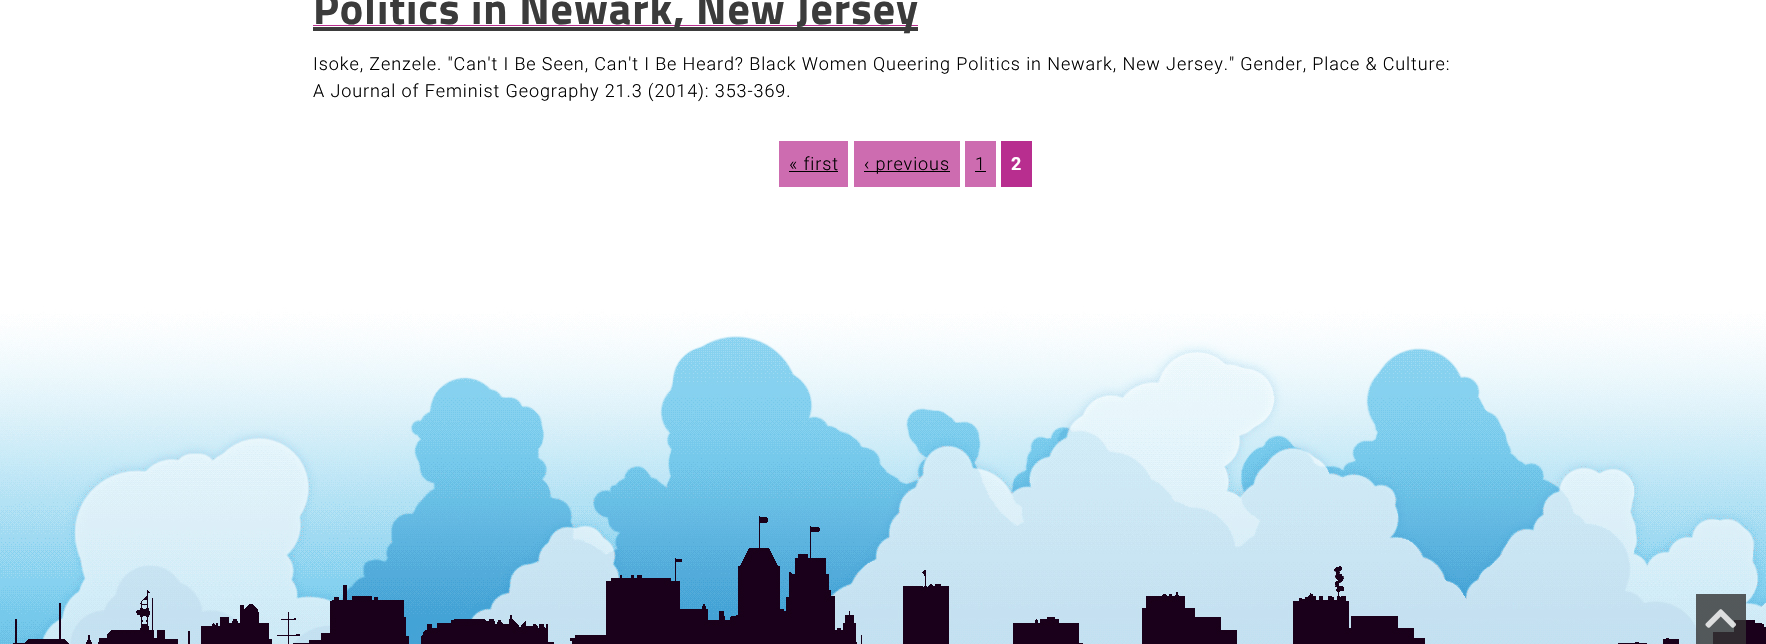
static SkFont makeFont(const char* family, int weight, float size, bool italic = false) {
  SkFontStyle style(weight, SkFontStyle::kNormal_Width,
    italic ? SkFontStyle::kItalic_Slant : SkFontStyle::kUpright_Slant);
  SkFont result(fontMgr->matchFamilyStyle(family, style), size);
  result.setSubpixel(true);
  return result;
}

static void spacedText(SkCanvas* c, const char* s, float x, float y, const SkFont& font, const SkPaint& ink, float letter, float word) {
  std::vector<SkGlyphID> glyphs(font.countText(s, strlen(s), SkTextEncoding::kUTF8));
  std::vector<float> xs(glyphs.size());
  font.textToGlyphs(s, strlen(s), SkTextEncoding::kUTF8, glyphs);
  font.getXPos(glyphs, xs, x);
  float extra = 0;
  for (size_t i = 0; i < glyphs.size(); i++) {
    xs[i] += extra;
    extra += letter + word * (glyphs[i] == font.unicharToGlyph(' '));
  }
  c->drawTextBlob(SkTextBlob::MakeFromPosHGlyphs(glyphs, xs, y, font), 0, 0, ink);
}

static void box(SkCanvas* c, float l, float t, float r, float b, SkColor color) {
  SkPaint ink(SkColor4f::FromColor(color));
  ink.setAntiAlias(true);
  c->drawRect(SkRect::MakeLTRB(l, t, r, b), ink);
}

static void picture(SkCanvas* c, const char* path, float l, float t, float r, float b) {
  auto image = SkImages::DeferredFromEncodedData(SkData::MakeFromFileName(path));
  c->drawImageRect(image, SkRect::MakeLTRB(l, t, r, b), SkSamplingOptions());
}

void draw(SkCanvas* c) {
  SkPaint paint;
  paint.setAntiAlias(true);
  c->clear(0xffffffff);
  box(c, 313, 27, 918, 31, 0xff3b3b3b);
  box(c, 313, 25, 918, 26, 0xffb82e8f);
  SkFont face1 = makeFont("Titillium Web", 700, 44);
  paint.setColor(0xff3b3b3b);
  spacedText(c, "Politics in Newark, New Jersey", 313, 24, face1, paint, 0.9f, 0);
  SkFont face2 = makeFont("Roboto", 300, 18);
  paint.setColor(0xff000000);
  spacedText(c, "Isoke, Zenzele. \"Can't I Be Seen, Can't I Be Heard? Black Women Queering Politics in Newark, New Jersey.\" Gender, Place & Culture:", 313, 70, face2, paint, 0.9f, 0);
  spacedText(c, "A Journal of Feminist Geography 21.3 (2014): 353-369.", 313, 97, face2, paint, 0.9f, 0);
  box(c, 779, 141, 848, 187, 0xffcd6cb0);
  spacedText(c, "« first", 789, 170, face2, paint, 0.9f, 0);
  box(c, 789, 171, 838, 172, 0xff000000);
  box(c, 854, 141, 960, 187, 0xffcd6cb0);
  box(c, 864, 171, 950, 172, 0xff000000);
  spacedText(c, "‹ previous", 864, 170, face2, paint, 0.9f, 0);
  box(c, 965, 141, 996, 187, 0xffcd6cb0);
  spacedText(c, "1", 975, 170, face2, paint, 0.9f, 0);
  box(c, 975, 171, 986, 172, 0xff000000);
  box(c, 1001, 141, 1032, 187, 0xffb82e8f);
  SkFont face3 = makeFont("Roboto", 700, 18);
  paint.setColor(0xffffffff);
  spacedText(c, "2", 1011, 170, face3, paint, 0.9f, 0);
  picture(c, "img_01.png", 0, 242, 1766, 644);
  box(c, 1696, 594, 1746, 644, 0xcc333333);
  picture(c, "img_02.png", 1705, 609, 1737, 628);
}
